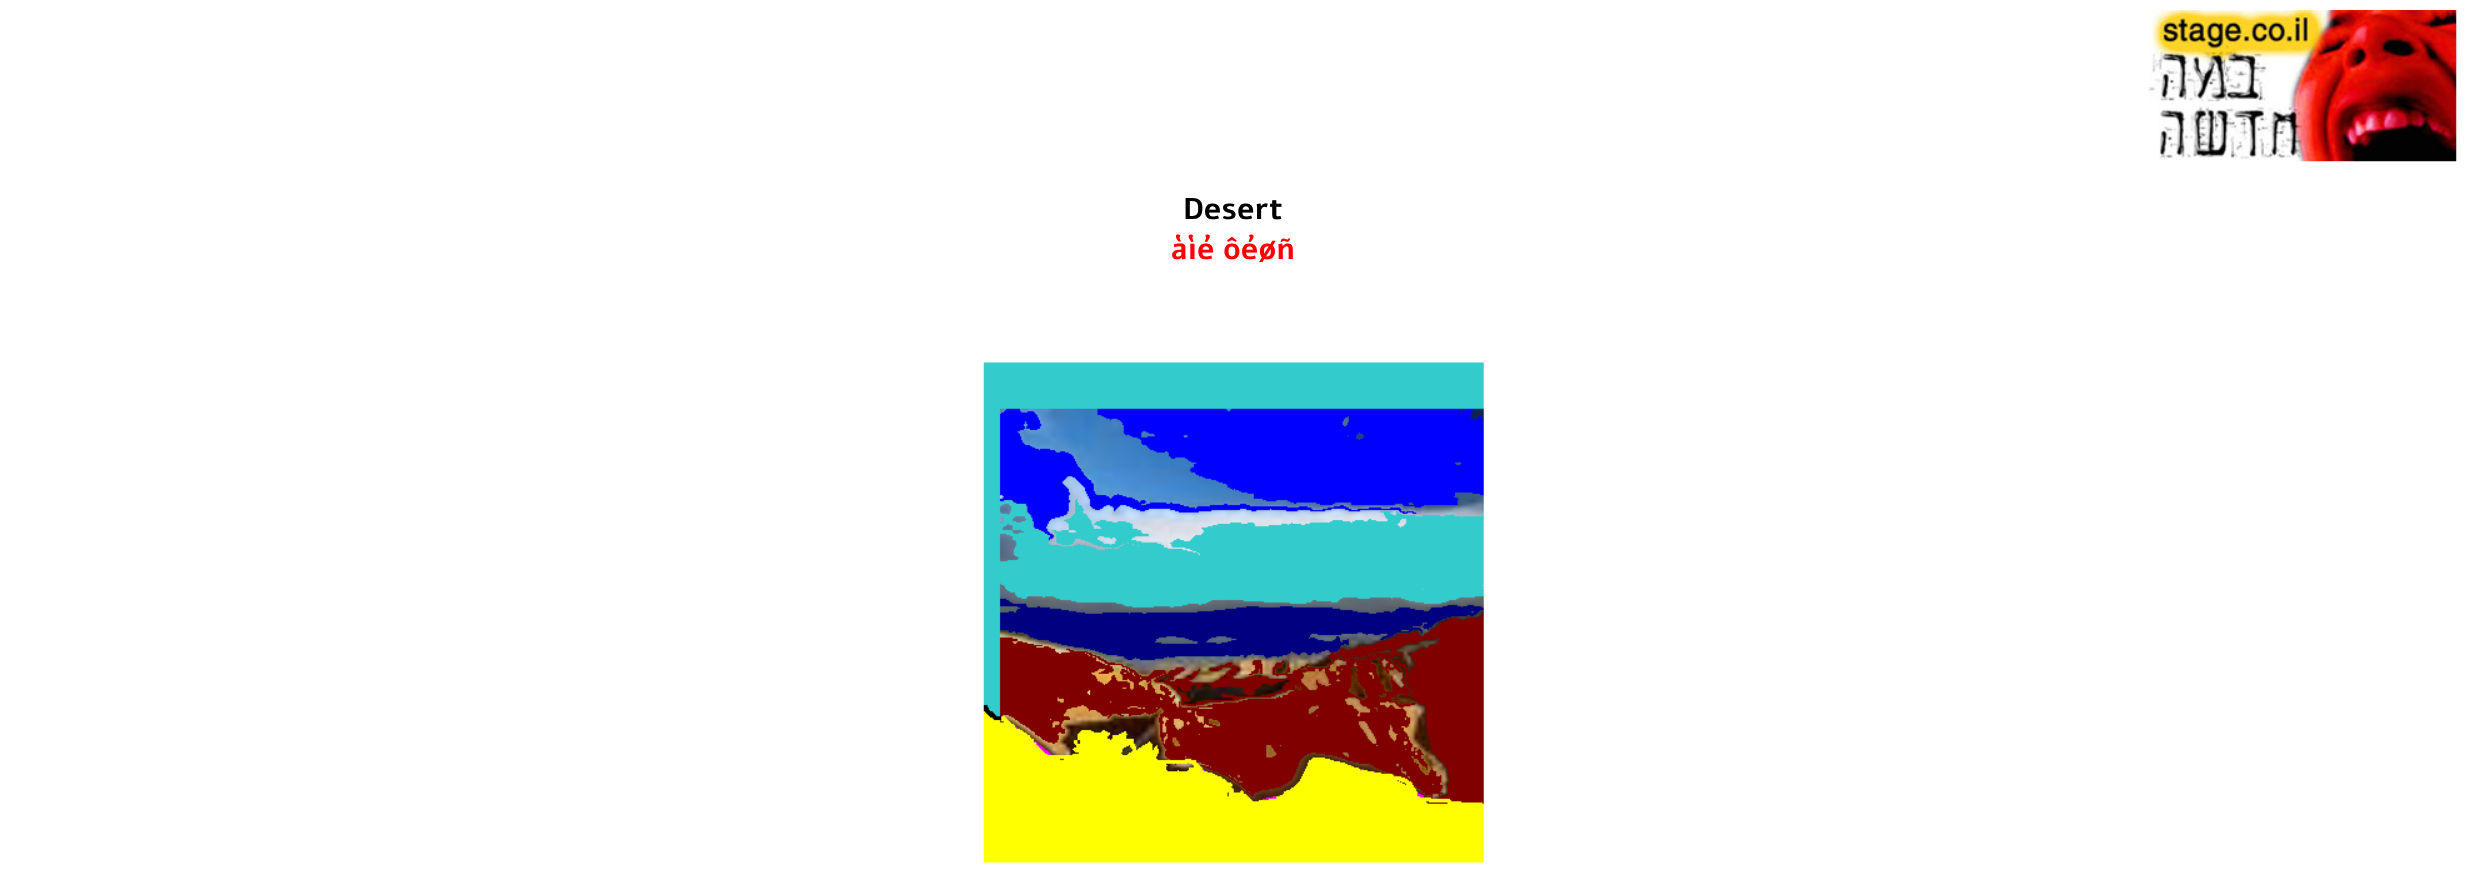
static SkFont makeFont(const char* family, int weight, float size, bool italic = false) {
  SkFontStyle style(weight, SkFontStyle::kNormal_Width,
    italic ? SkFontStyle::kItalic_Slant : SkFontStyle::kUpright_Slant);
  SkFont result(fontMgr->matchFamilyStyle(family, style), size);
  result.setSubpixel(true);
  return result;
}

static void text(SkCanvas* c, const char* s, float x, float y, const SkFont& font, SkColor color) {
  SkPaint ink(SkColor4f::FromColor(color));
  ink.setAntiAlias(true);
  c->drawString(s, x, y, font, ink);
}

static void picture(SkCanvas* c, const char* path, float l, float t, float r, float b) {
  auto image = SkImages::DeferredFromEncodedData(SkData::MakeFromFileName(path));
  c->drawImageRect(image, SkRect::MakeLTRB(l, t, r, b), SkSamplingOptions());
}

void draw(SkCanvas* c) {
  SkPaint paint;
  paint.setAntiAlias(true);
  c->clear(0xffffffff);
  picture(c, "img_01.png", 2148, 10, 2457, 162);
  SkFont face1 = makeFont("Alef", 700, 30);
  text(c, "Desert", 1183, 219, face1, 0xff000000);
  text(c, "àìé ôéøñ", 1171, 259, face1, 0xffff0000);
  picture(c, "img_02.png", 983, 362, 1484, 863);
}
